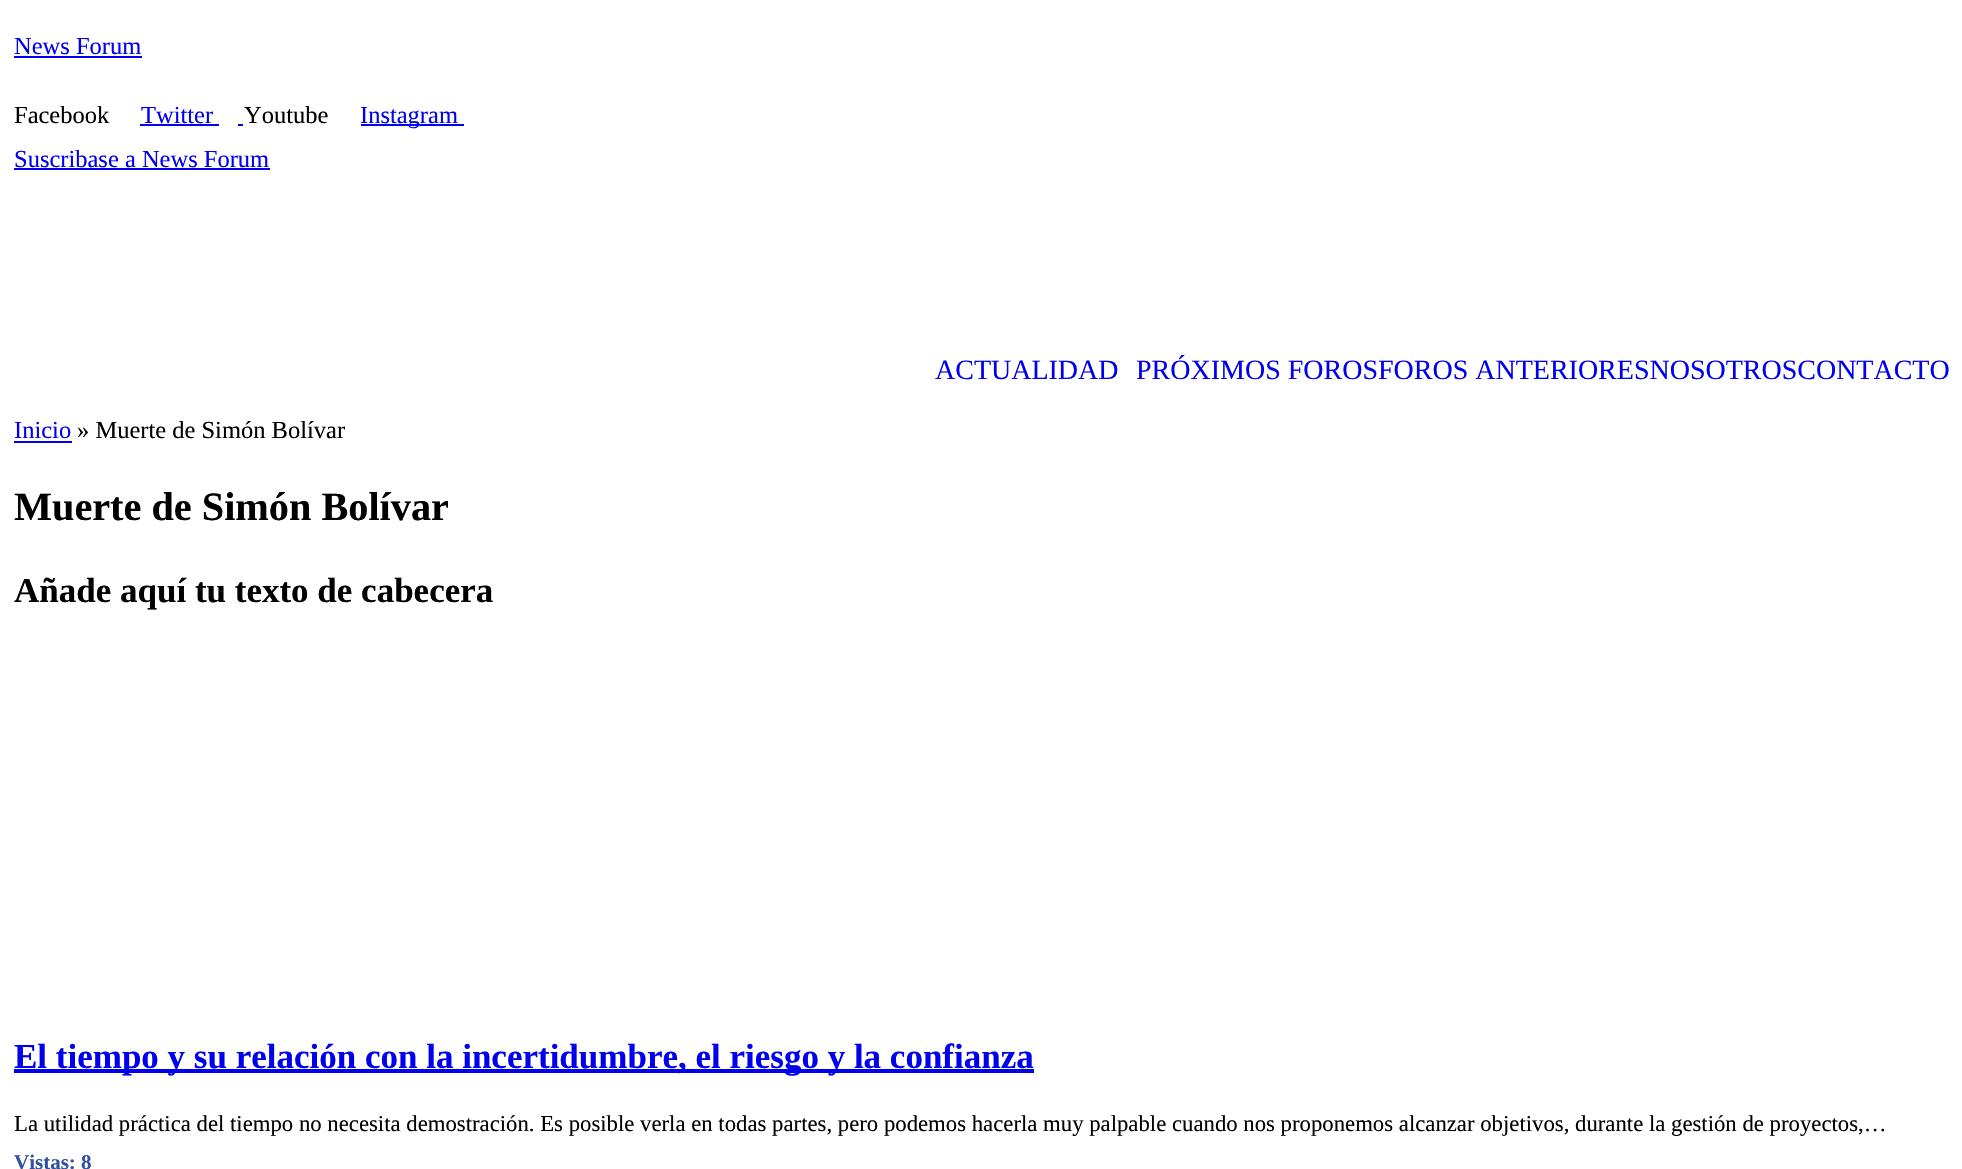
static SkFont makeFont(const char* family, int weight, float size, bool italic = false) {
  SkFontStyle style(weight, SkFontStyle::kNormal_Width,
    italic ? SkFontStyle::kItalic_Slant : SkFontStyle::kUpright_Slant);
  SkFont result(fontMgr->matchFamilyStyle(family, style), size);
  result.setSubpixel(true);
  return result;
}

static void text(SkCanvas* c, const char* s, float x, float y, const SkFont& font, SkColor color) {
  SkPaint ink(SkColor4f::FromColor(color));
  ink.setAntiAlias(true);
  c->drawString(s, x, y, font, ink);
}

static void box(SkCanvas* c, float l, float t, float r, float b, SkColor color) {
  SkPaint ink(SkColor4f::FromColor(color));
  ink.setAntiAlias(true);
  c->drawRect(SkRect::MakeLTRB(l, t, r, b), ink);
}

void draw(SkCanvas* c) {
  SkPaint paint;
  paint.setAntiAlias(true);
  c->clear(0xffffffff);
  SkFont face1 = makeFont("Liberation Serif", 400, 24.5f);
  text(c, "News Forum", 14, 54, face1, 0xff0000ee);
  box(c, 14, 56, 142, 58, 0xff0000ee);
  text(c, "Facebook", 14, 123, face1, 0xff000000);
  text(c, "Twitter", 141, 123, face1, 0xff0000ee);
  box(c, 140, 124, 219, 126, 0xff0000ee);
  box(c, 238, 124, 243, 126, 0xff0000ee);
  text(c, "Youtube", 244, 123, face1, 0xff000000);
  box(c, 361, 124, 464, 126, 0xff0000ee);
  text(c, "Instagram", 360, 123, face1, 0xff0000ee);
  text(c, "Suscribase a News Forum", 14, 167, face1, 0xff0000ee);
  box(c, 14, 168, 270, 170, 0xff0000ee);
  SkFont face2 = makeFont("Liberation Serif", 400, 28);
  text(c, "ACTUALIDAD", 935, 379, face2, 0xff0000ee);
  text(c, "PRÓXIMOS FOROSFOROS ANTERIORESNOSOTROSCONTACTO", 1136, 379, face2, 0xff0000ee);
  text(c, "Inicio", 14, 438, face1, 0xff0000ee);
  box(c, 14, 441, 72, 443, 0xff0000ee);
  text(c, "» Muerte de Simón Bolívar", 77, 438, face1, 0xff000000);
  SkFont face3 = makeFont("Liberation Serif", 700, 40.25f);
  text(c, "Muerte de Simón Bolívar", 14, 520, face3, 0xff000000);
  SkFont face4 = makeFont("Liberation Serif", 700, 35);
  text(c, "Añade aquí tu texto de cabecera", 14, 602, face4, 0xff000000);
  box(c, 14, 1069, 1034, 1073, 0xff0000ee);
  text(c, "El tiempo y su relación con la incertidumbre, el riesgo y la confianza", 14, 1068, face4, 0xff0000ee);
  SkFont face5 = makeFont("Liberation Serif", 400, 22.75f);
  text(c, "La utilidad práctica del tiempo no necesita demostración. Es posible verla en todas partes, pero podemos hacerla muy palpable cuando nos proponemos alcanzar objetivos, durante la gestión de proyectos,…", 14, 1131, face5, 0xff000000);
  SkFont face6 = makeFont("Liberation Serif", 700, 21);
  text(c, "Vistas: 8", 14, 1169, face6, 0xff31519f);
}
